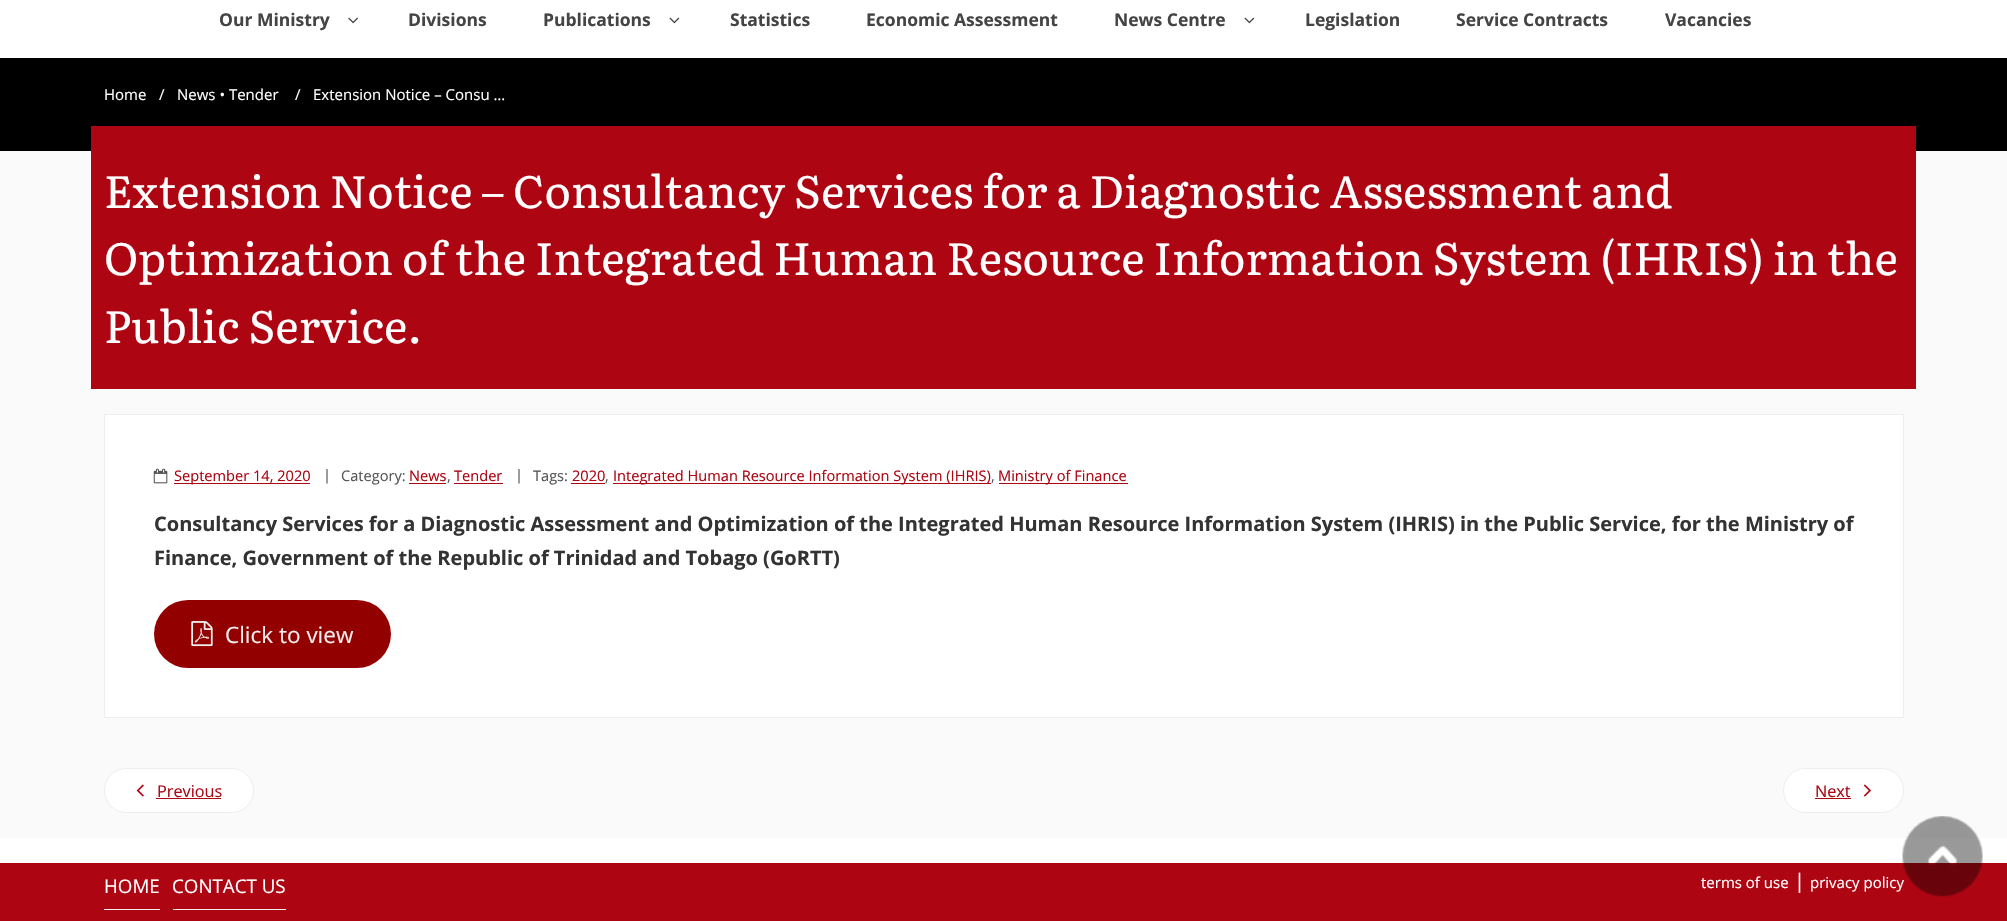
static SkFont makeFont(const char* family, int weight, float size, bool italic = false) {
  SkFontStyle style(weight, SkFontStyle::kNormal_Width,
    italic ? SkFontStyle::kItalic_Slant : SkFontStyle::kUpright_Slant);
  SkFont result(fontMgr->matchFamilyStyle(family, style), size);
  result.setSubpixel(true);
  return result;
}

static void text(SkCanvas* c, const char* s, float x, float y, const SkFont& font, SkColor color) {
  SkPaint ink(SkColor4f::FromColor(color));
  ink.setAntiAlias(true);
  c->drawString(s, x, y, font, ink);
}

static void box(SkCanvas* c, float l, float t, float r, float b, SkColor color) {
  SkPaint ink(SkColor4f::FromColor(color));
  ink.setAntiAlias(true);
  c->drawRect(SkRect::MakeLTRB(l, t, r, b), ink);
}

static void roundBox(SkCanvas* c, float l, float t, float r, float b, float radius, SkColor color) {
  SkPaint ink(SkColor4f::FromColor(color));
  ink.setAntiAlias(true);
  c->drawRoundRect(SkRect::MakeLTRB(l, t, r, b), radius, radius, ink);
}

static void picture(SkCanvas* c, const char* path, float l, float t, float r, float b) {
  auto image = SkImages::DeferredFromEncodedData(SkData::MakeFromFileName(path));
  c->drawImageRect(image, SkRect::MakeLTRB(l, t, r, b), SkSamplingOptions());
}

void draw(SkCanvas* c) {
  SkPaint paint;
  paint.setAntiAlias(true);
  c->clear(0xfffafafa);
  box(c, 0, 0, 2007, 58, 0xffffffff);
  SkFont face1 = makeFont("Open Sans", 700, 17.5f);
  text(c, "Our Ministry", 219, 26, face1, 0xff444444);
  picture(c, "img_01.png", 348, 17, 358, 24);
  text(c, "Divisions", 408, 26, face1, 0xff444444);
  text(c, "Publications", 543, 26, face1, 0xff444444);
  picture(c, "img_02.png", 669, 17, 680, 24);
  text(c, "Statistics", 730, 26, face1, 0xff444444);
  text(c, "Economic Assessment", 866, 26, face1, 0xff444444);
  text(c, "News Centre", 1114, 26, face1, 0xff444444);
  picture(c, "img_02.png", 1244, 17, 1255, 24);
  text(c, "Legislation", 1305, 26, face1, 0xff444444);
  text(c, "Service Contracts", 1456, 26, face1, 0xff444444);
  text(c, "Vacancies", 1665, 26, face1, 0xff444444);
  box(c, 0, 58, 2007, 151, 0xff000000);
  SkFont face2 = makeFont("Open Sans", 400, 15);
  text(c, "Home", 104, 100, face2, 0xffffffff);
  text(c, "/", 159, 100, face2, 0xffffffff);
  text(c, "News • Tender", 177, 100, face2, 0xffffffff);
  text(c, "/", 295, 100, face2, 0xffffffff);
  text(c, "Extension Notice – Consu …", 313, 100, face2, 0xffffffff);
  box(c, 91, 126, 1916, 389, 0xffad0512);
  SkFont face3 = makeFont("Literata", 400, 45);
  text(c, "Extension Notice – Consultancy Services for a Diagnostic Assessment and", 104, 208, face3, 0xffffffff);
  text(c, "Optimization of the Integrated Human Resource Information System (IHRIS) in the", 104, 275, face3, 0xffffffff);
  text(c, "Public Service.", 104, 343, face3, 0xffffffff);
  paint.setColor(0xffffffff);
  c->drawRect(SkRect::MakeLTRB(104.5f, 414.5f, 1903.5f, 717.5f), paint);
  paint.setStyle(SkPaint::kStroke_Style);
  paint.setStrokeWidth(1);
  paint.setColor(0xffeeeeee);
  c->drawRect(SkRect::MakeLTRB(104.5f, 414.5f, 1903.5f, 717.5f), paint);
  picture(c, "img_03.png", 153, 468, 168, 484);
  box(c, 174, 483, 310, 484, 0xffad0512);
  SkFont face4 = makeFont("Open Sans", 400, 14.6f);
  text(c, "September 14, 2020", 174, 481, face4, 0xffad0512);
  text(c, "|", 323, 480, face4, 0xff555555);
  text(c, "Category:", 341, 481, face4, 0xff555555);
  text(c, "News", 409, 481, face4, 0xffad0512);
  box(c, 409, 483, 446, 484, 0xffad0512);
  text(c, ",", 447, 481, face4, 0xff555555);
  text(c, "Tender", 454, 481, face4, 0xffad0512);
  box(c, 454, 483, 503, 484, 0xffad0512);
  text(c, "|", 515, 480, face4, 0xff555555);
  text(c, "Tags:", 533, 481, face4, 0xff555555);
  text(c, "2020", 572, 481, face4, 0xffad0512);
  box(c, 571, 483, 605, 484, 0xffad0512);
  text(c, ",", 605, 481, face4, 0xff555555);
  box(c, 613, 483, 991, 484, 0xffad0512);
  text(c, "Integrated Human Resource Information System (IHRIS)", 613, 481, face4, 0xffad0512);
  text(c, ",", 991, 481, face4, 0xff555555);
  box(c, 999, 483, 1128, 484, 0xffad0512);
  text(c, "Ministry of Finance", 998, 481, face4, 0xffad0512);
  SkFont face5 = makeFont("Open Sans", 700, 20);
  text(c, "Consultancy Services for a Diagnostic Assessment and Optimization of the Integrated Human Resource Information System (IHRIS) in the Public Service, for the Ministry of", 154, 531, face5, 0xff333333);
  text(c, "Finance, Government of the Republic of Trinidad and Tobago (GoRTT)", 154, 565, face5, 0xff333333);
  roundBox(c, 154, 600, 391, 668, 34, 0xff930000);
  picture(c, "img_04.png", 191, 621, 213, 647);
  SkFont face6 = makeFont("Open Sans", 400, 22.5f);
  text(c, "Click to view", 225, 643, face6, 0xffeeeeee);
  paint.setStyle(SkPaint::kFill_Style);
  paint.setColor(0xffffffff);
  c->drawRoundRect(SkRect::MakeLTRB(104.5f, 768.5f, 253.5f, 812.5f), 22, 22, paint);
  paint.setStyle(SkPaint::kStroke_Style);
  paint.setColor(0xffeeeeee);
  c->drawRoundRect(SkRect::MakeLTRB(104.5f, 768.5f, 253.5f, 812.5f), 22, 22, paint);
  picture(c, "img_05.png", 136, 784, 144, 797);
  SkFont face7 = makeFont("Open Sans", 400, 16.25f);
  text(c, "Previous", 157, 797, face7, 0xffad0512);
  box(c, 156, 798, 221, 799, 0xffad0512);
  paint.setStyle(SkPaint::kFill_Style);
  paint.setColor(0xffffffff);
  c->drawRoundRect(SkRect::MakeLTRB(1783.5f, 768.5f, 1903.5f, 812.5f), 22, 22, paint);
  paint.setStyle(SkPaint::kStroke_Style);
  paint.setColor(0xffeeeeee);
  c->drawRoundRect(SkRect::MakeLTRB(1783.5f, 768.5f, 1903.5f, 812.5f), 22, 22, paint);
  text(c, "Next", 1815, 797, face7, 0xffad0512);
  box(c, 1815, 798, 1851, 799, 0xffad0512);
  picture(c, "img_06.png", 1864, 784, 1871, 797);
  box(c, 0, 838, 2007, 863, 0xffffffff);
  box(c, 0, 863, 2007, 921, 0xffad0512);
  box(c, 104, 909, 160, 910, 0xffeeeeee);
  SkFont face8 = makeFont("Open Sans", 400, 18.75f);
  text(c, "HOME", 104, 893, face8, 0xffffffff);
  box(c, 173, 909, 286, 910, 0xffeeeeee);
  text(c, "CONTACT US", 172, 893, face8, 0xffffffff);
  text(c, "terms of use", 1701, 888, face2, 0xffffffff);
  SkFont face9 = makeFont("Open Sans", 400, 20);
  text(c, "|", 1794, 888, face9, 0xffffffff);
  text(c, "privacy policy", 1810, 888, face2, 0xffffffff);
  picture(c, "img_07.png", 1902, 816, 1983, 897);
}
